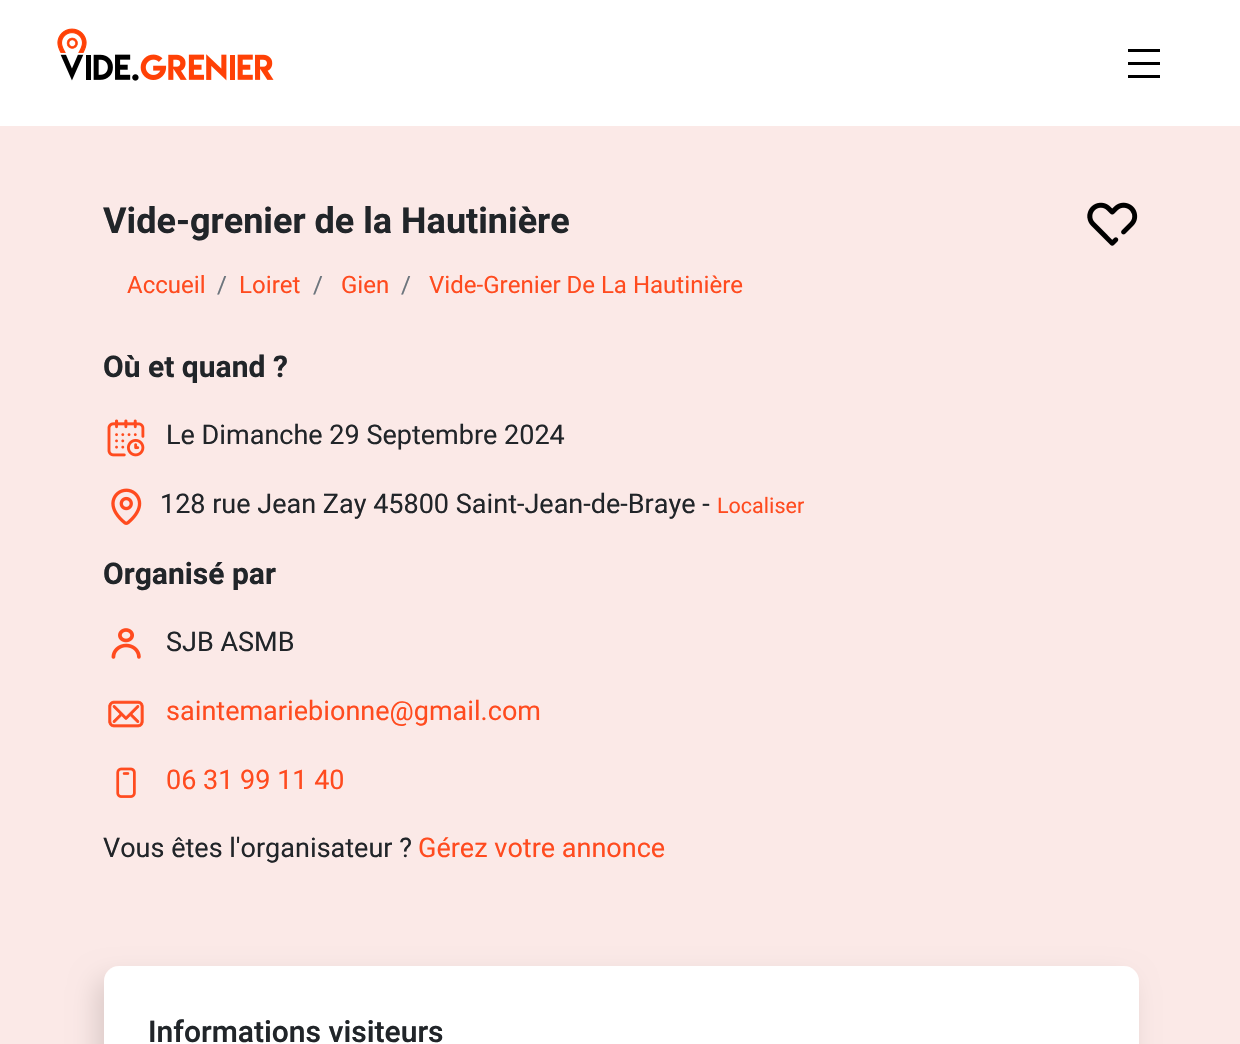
static SkFont makeFont(const char* family, int weight, float size, bool italic = false) {
  SkFontStyle style(weight, SkFontStyle::kNormal_Width,
    italic ? SkFontStyle::kItalic_Slant : SkFontStyle::kUpright_Slant);
  SkFont result(fontMgr->matchFamilyStyle(family, style), size);
  result.setSubpixel(true);
  return result;
}

static void text(SkCanvas* c, const char* s, float x, float y, const SkFont& font, SkColor color) {
  SkPaint ink(SkColor4f::FromColor(color));
  ink.setAntiAlias(true);
  c->drawString(s, x, y, font, ink);
}

static void box(SkCanvas* c, float l, float t, float r, float b, SkColor color) {
  SkPaint ink(SkColor4f::FromColor(color));
  ink.setAntiAlias(true);
  c->drawRect(SkRect::MakeLTRB(l, t, r, b), ink);
}

static void roundBox(SkCanvas* c, float l, float t, float r, float b, float radius, SkColor color) {
  SkPaint ink(SkColor4f::FromColor(color));
  ink.setAntiAlias(true);
  c->drawRoundRect(SkRect::MakeLTRB(l, t, r, b), radius, radius, ink);
}

static void picture(SkCanvas* c, const char* path, float l, float t, float r, float b) {
  auto image = SkImages::DeferredFromEncodedData(SkData::MakeFromFileName(path));
  c->drawImageRect(image, SkRect::MakeLTRB(l, t, r, b), SkSamplingOptions());
}

void draw(SkCanvas* c) {
  SkPaint paint;
  paint.setAntiAlias(true);
  c->clear(0xffffffff);
  picture(c, "img_01.png", 57, 28, 274, 81);
  box(c, 1128, 49, 1160, 52, 0xff000000);
  box(c, 1128, 62, 1160, 65, 0xff000000);
  box(c, 1128, 75, 1160, 78, 0xff000000);
  box(c, 0, 126, 1240, 1044, 0xfffbe9e7);
  SkFont face1 = makeFont("Heebo", 700, 36);
  text(c, "Vide-grenier de la Hautinière", 103, 233, face1, 0xff212529);
  picture(c, "img_02.png", 1087, 202, 1138, 246);
  SkFont face2 = makeFont("Heebo", 400, 24);
  text(c, "Accueil", 127, 293, face2, 0xffff4b1f);
  text(c, "/", 217, 293, face2, 0xff6c757d);
  text(c, "Loiret", 239, 293, face2, 0xffff4b1f);
  text(c, "/", 313, 293, face2, 0xff6c757d);
  text(c, "Gien", 341, 293, face2, 0xffff4b1f);
  text(c, "/", 401, 293, face2, 0xff6c757d);
  text(c, "Vide-Grenier De La Hautinière", 429, 293, face2, 0xffff4b1f);
  SkFont face3 = makeFont("Heebo", 700, 30);
  text(c, "Où et quand ?", 103, 377, face3, 0xff212529);
  picture(c, "img_03.png", 107, 419, 145, 457);
  SkFont face4 = makeFont("Heebo", 400, 27);
  text(c, "Le Dimanche 29 Septembre 2024", 166, 444, face4, 0xff212529);
  picture(c, "img_04.png", 111, 488, 142, 525);
  text(c, "128 rue Jean Zay 45800 Saint-Jean-de-Braye -", 160, 513, face4, 0xff212529);
  SkFont face5 = makeFont("Heebo", 400, 21.5f);
  text(c, "Localiser", 717, 513, face5, 0xffff4b1f);
  text(c, "Organisé par", 103, 584, face3, 0xff212529);
  picture(c, "img_05.png", 111, 628, 141, 659);
  text(c, "SJB ASMB", 166, 651, face4, 0xff212529);
  picture(c, "img_06.png", 108, 700, 144, 728);
  text(c, "saintemariebionne@gmail.com", 166, 720, face4, 0xffff4b1f);
  picture(c, "img_07.png", 116, 767, 136, 798);
  text(c, "06 31 99 11 40", 166, 789, face4, 0xffff4b1f);
  text(c, "Vous êtes l'organisateur ?", 103, 857, face4, 0xff212529);
  text(c, "Gérez votre annonce", 418, 857, face4, 0xffff4b1f);
  c->save();
  c->clipPath(SkPathBuilder(SkPathFillType::kEvenOdd).moveTo(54, 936).lineTo(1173, 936).lineTo(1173, 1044).lineTo(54, 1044).close().moveTo(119, 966).lineTo(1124, 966).cubicTo(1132.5f, 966, 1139, 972.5f, 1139, 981).lineTo(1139, 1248).cubicTo(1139, 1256.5f, 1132.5f, 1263, 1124, 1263).lineTo(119, 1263).cubicTo(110.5f, 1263, 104, 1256.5f, 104, 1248).lineTo(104, 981).cubicTo(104, 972.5f, 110.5f, 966, 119, 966).close().detach(), true);
  paint.setColor(0xffdbcac8);
  paint.setMaskFilter(SkMaskFilter::MakeBlur(kNormal_SkBlurStyle, 13.5f));
  c->drawRoundRect(SkRect::MakeLTRB(96, 978, 1131, 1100), 15, 15, paint);
  paint.setMaskFilter(nullptr);
  c->restore();
  roundBox(c, 104, 966, 1139, 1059, 15, 0xf5ffffff);
  SkFont face6 = makeFont("Heebo", 600, 30);
  text(c, "Informations visiteurs", 148, 1042, face6, 0xff212529);
}
